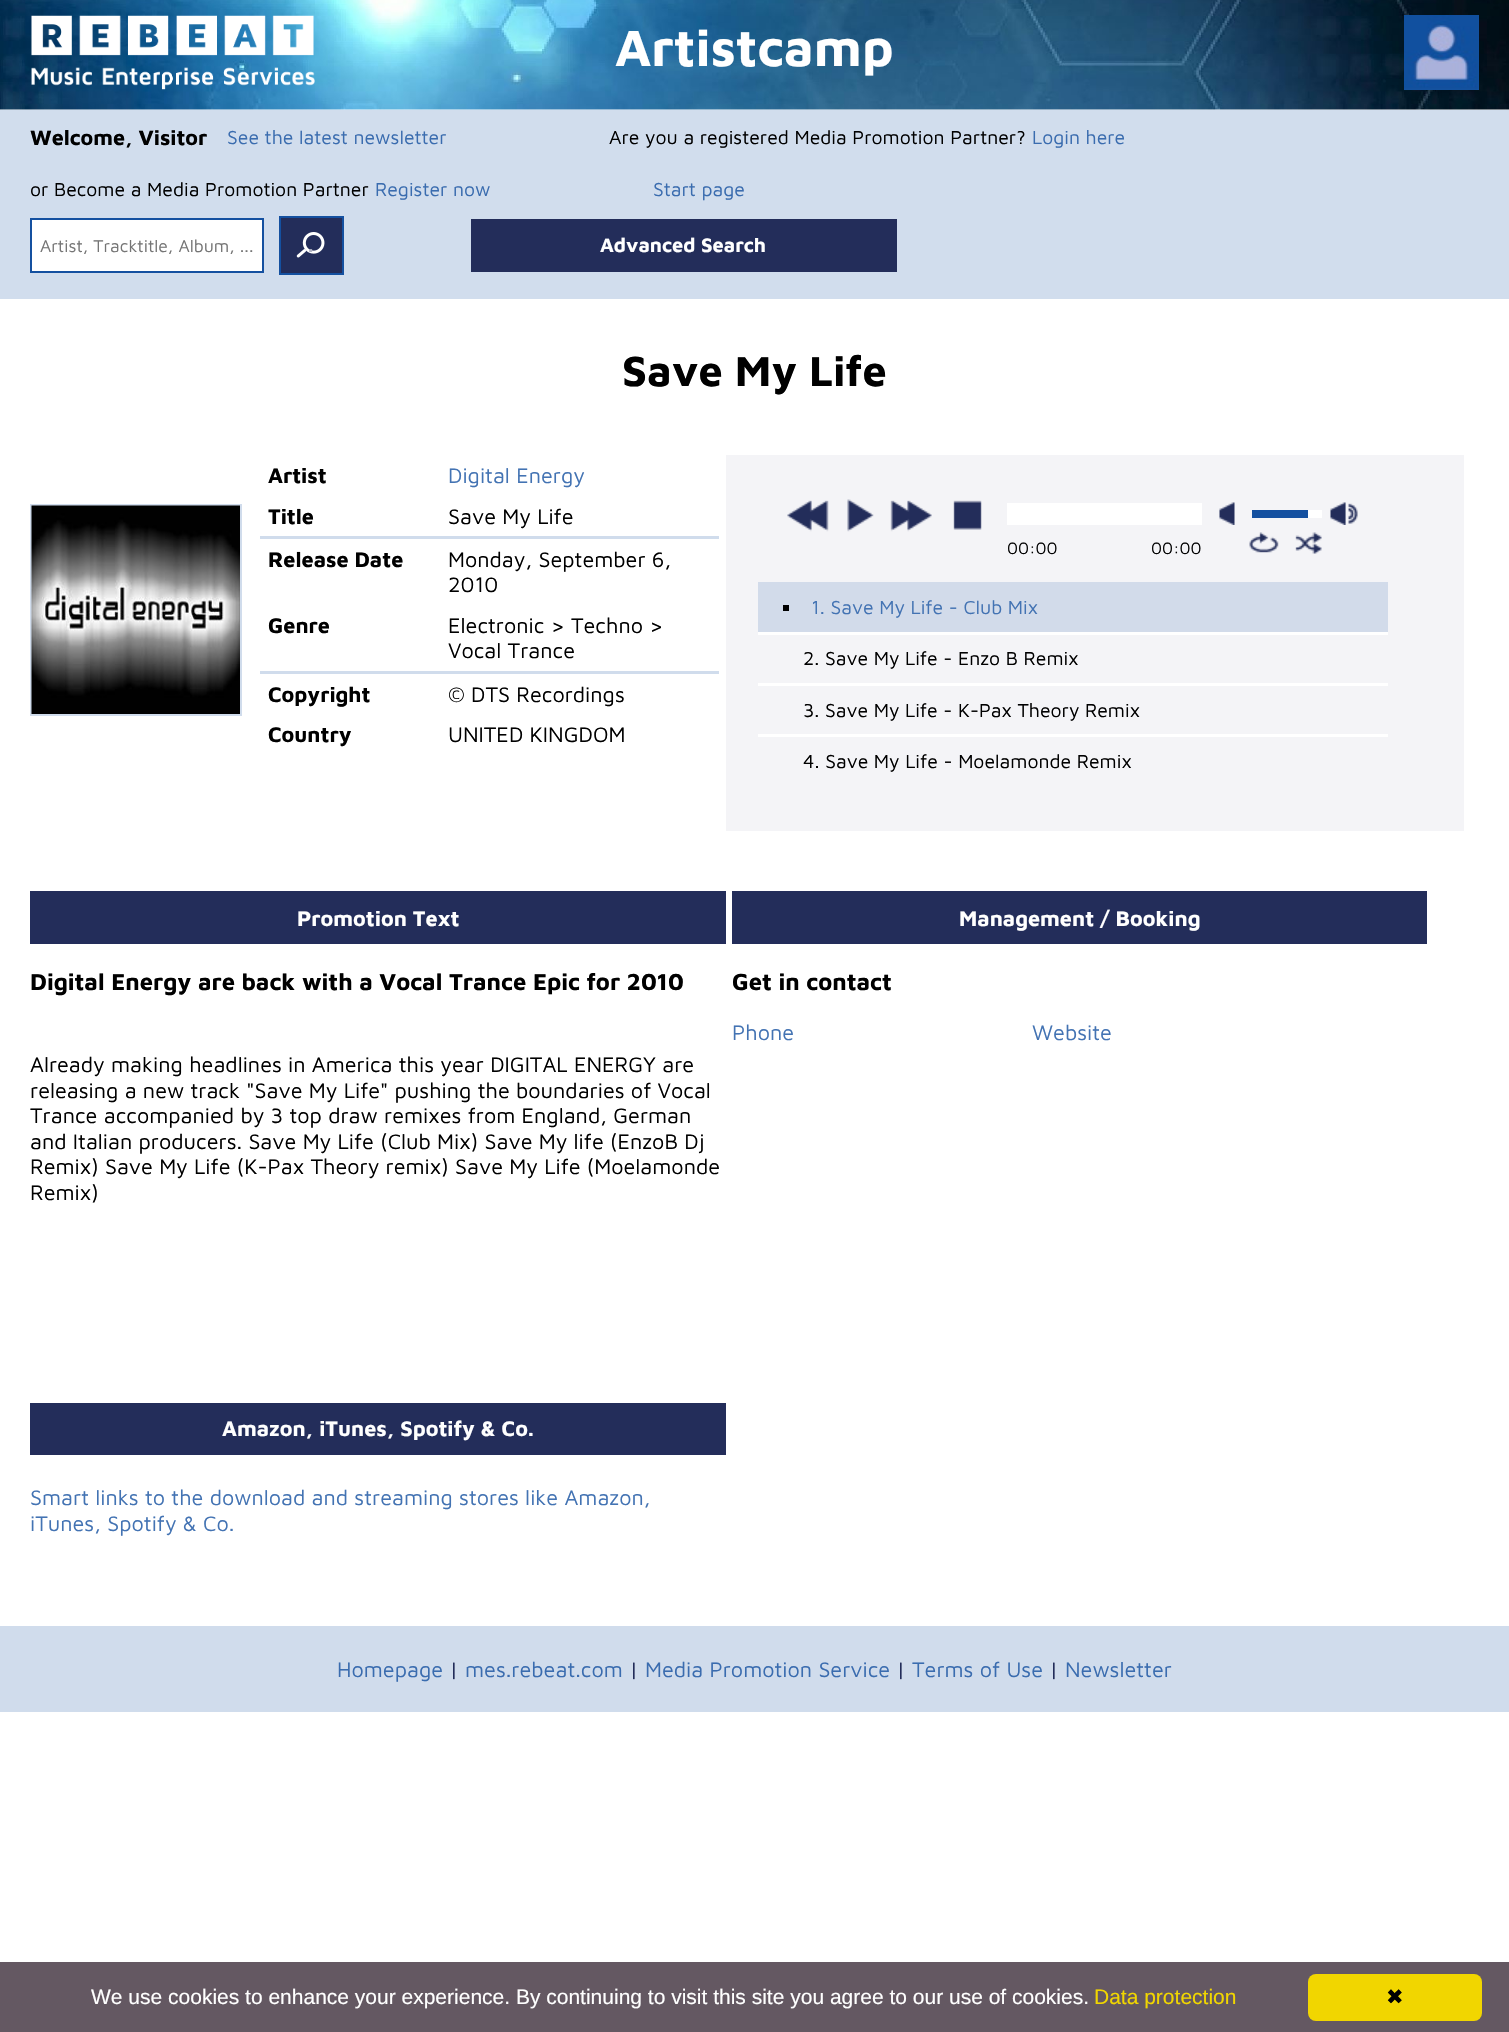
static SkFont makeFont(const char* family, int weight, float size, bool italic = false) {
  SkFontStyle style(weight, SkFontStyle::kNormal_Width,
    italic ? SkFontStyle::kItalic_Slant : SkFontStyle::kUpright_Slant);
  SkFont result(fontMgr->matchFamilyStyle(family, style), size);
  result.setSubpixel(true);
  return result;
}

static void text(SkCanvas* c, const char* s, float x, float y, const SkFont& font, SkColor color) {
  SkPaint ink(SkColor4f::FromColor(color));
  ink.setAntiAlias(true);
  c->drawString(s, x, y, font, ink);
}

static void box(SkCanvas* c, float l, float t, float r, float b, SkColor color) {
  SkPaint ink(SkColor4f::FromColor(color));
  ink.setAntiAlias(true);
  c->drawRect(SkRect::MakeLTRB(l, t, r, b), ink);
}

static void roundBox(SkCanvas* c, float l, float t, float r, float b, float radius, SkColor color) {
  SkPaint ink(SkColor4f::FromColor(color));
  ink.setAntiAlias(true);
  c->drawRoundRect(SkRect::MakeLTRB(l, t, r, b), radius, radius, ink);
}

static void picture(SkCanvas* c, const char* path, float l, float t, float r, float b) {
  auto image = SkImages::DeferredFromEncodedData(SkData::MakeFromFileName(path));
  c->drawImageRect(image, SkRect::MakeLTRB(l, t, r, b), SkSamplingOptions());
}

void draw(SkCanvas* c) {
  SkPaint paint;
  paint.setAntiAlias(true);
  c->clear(0xffffffff);
  picture(c, "img_01.png", 0, 0, 1509, 110);
  picture(c, "img_02.png", 31, 15, 315, 90);
  SkFont face1 = makeFont("Maven Pro", 700, 52.5f);
  text(c, "Artistcamp", 615, 66, face1, 0xffffffff);
  picture(c, "img_03.png", 1404, 15, 1479, 90);
  box(c, 0, 110, 1509, 299, 0xffd1dded);
  SkFont face2 = makeFont("Maven Pro", 700, 21.5f);
  text(c, "Welcome, Visitor", 30, 145, face2, 0xff000000);
  SkFont face3 = makeFont("Maven Pro", 400, 19.4f);
  text(c, "See the latest newsletter", 227, 144, face3, 0xff3a6caf);
  text(c, "Are you a registered Media Promotion Partner?", 609, 144, face3, 0xff000000);
  text(c, "Login here", 1032, 144, face3, 0xff3a6caf);
  text(c, "or Become a Media Promotion Partner", 30, 196, face3, 0xff000000);
  text(c, "Register now", 375, 196, face3, 0xff3a6caf);
  text(c, "Start page", 653, 196, face3, 0xff3a6caf);
  paint.setColor(0xffffffff);
  c->drawRect(SkRect::MakeLTRB(31, 219, 263, 272), paint);
  paint.setStyle(SkPaint::kStroke_Style);
  paint.setStrokeWidth(2);
  paint.setColor(0xff1450a0);
  c->drawRect(SkRect::MakeLTRB(31, 219, 263, 272), paint);
  SkFont face4 = makeFont("Maven Pro", 400, 17.5f);
  text(c, "Artist, Tracktitle, Album, ...", 40, 252, face4, 0xff757575);
  box(c, 281, 218, 342, 273, 0xff232d5a);
  picture(c, "img_04.png", 296, 232, 325, 258);
  c->drawRect(SkRect::MakeLTRB(280, 217, 343, 274), paint);
  SkFont face5 = makeFont("Maven Pro", 700, 20);
  text(c, ".", 308, 252, face5, 0xffb3b6c6);
  box(c, 471, 219, 897, 272, 0xff232d5a);
  text(c, "Advanced Search", 600, 252, face5, 0xffffffff);
  SkFont face6 = makeFont("Maven Pro", 700, 43.25f);
  text(c, "Save My Life", 622, 386, face6, 0xff000000);
  paint.setColor(0xffd0dcec);
  c->drawRect(SkRect::MakeLTRB(31, 505, 241, 715), paint);
  picture(c, "img_05.png", 31, 505, 240, 714);
  SkFont face7 = makeFont("Maven Pro", 700, 21.6f);
  text(c, "Artist", 268, 483, face7, 0xff000000);
  SkFont face8 = makeFont("Maven Pro", 400, 21.6f);
  text(c, "Digital Energy", 448, 483, face8, 0xff4373b3);
  text(c, "Title", 268, 524, face7, 0xff000000);
  text(c, "Save My Life", 448, 524, face8, 0xff000000);
  box(c, 260, 536, 719, 539, 0xffd0dcec);
  text(c, "Release Date", 268, 567, face7, 0xff000000);
  text(c, "Monday, September 6,", 448, 567, face8, 0xff000000);
  text(c, "2010", 448, 592, face8, 0xff000000);
  text(c, "Genre", 268, 633, face7, 0xff000000);
  text(c, "Electronic > Techno >", 448, 633, face8, 0xff000000);
  text(c, "Vocal Trance", 448, 658, face8, 0xff000000);
  box(c, 260, 671, 719, 674, 0xffd0dcec);
  text(c, "Copyright", 268, 702, face7, 0xff000000);
  text(c, "© DTS Recordings", 448, 702, face8, 0xff000000);
  text(c, "Country", 268, 742, face7, 0xff000000);
  text(c, "UNITED KINGDOM", 448, 742, face8, 0xff000000);
  box(c, 726, 455, 1464, 831, 0xfff4f4f7);
  picture(c, "img_06.png", 787, 500, 829, 532);
  picture(c, "img_07.png", 847, 499, 874, 532);
  picture(c, "img_08.png", 890, 500, 932, 532);
  picture(c, "img_09.png", 953, 500, 982, 530);
  picture(c, "img_10.png", 1219, 502, 1235, 525);
  picture(c, "img_11.png", 1330, 502, 1358, 525);
  box(c, 1007, 503, 1202, 525, 0xffffffff);
  box(c, 1308, 510, 1322, 518, 0xffffffff);
  box(c, 1252, 510, 1308, 518, 0xff1450a0);
  SkFont face9 = makeFont("Maven Pro", 400, 17);
  text(c, "00:00", 1007, 554, face9, 0xff000000);
  text(c, "00:00", 1151, 554, face9, 0xff000000);
  picture(c, "img_12.png", 1249, 532, 1279, 553);
  picture(c, "img_13.png", 1295, 532, 1322, 554);
  box(c, 758, 582, 1388, 632, 0xffd2dbea);
  box(c, 758, 632, 1388, 635, 0xffffffff);
  box(c, 783, 605, 789, 611, 0xff000000);
  text(c, "1. Save My Life - Club Mix", 811, 614, face3, 0xff4373b3);
  box(c, 758, 683, 1388, 686, 0xffffffff);
  text(c, "2. Save My Life - Enzo B Remix", 803, 665, face3, 0xff000000);
  box(c, 758, 734, 1388, 737, 0xffffffff);
  text(c, "3. Save My Life - K-Pax Theory Remix", 803, 717, face3, 0xff000000);
  text(c, "4. Save My Life - Moelamonde Remix", 803, 768, face3, 0xff000000);
  box(c, 30, 891, 726, 944, 0xff232d5a);
  text(c, "Promotion Text", 297, 926, face7, 0xffffffff);
  SkFont face10 = makeFont("Maven Pro", 700, 23.75f);
  text(c, "Digital Energy are back with a Vocal Trance Epic for 2010", 30, 990, face10, 0xff000000);
  text(c, "Already making headlines in America this year DIGITAL ENERGY are", 30, 1072, face8, 0xff000000);
  text(c, "releasing a new track \"Save My Life\" pushing the boundaries of Vocal", 30, 1098, face8, 0xff000000);
  text(c, "Trance accompanied by 3 top draw remixes from England, German", 30, 1123, face8, 0xff000000);
  text(c, "and Italian producers. Save My Life (Club Mix) Save My life (EnzoB Dj", 30, 1149, face8, 0xff000000);
  text(c, "Remix) Save My Life (K-Pax Theory remix) Save My Life (Moelamonde", 30, 1174, face8, 0xff000000);
  text(c, "Remix)", 30, 1200, face8, 0xff000000);
  box(c, 732, 891, 1427, 944, 0xff232d5a);
  text(c, "Management / Booking", 959, 926, face7, 0xffffffff);
  text(c, "Get in contact", 732, 990, face10, 0xff000000);
  text(c, "Phone", 732, 1040, face8, 0xff4373b3);
  text(c, "Website", 1032, 1040, face8, 0xff4373b3);
  box(c, 30, 1403, 726, 1455, 0xff232d5a);
  text(c, "Amazon, iTunes, Spotify & Co.", 222, 1436, face7, 0xffffffff);
  text(c, "Smart links to the download and streaming stores like Amazon,", 30, 1505, face8, 0xff4373b3);
  text(c, "iTunes, Spotify & Co.", 30, 1531, face8, 0xff4373b3);
  box(c, 0, 1626, 1509, 1712, 0xffd0dcec);
  text(c, "Homepage", 337, 1677, face8, 0xff3a6caf);
  text(c, "|", 449, 1677, face8, 0xff232d5a);
  text(c, "mes.rebeat.com", 465, 1677, face8, 0xff3a6caf);
  text(c, "|", 629, 1677, face8, 0xff232d5a);
  text(c, "Media Promotion Service", 645, 1677, face8, 0xff3a6caf);
  text(c, "|", 896, 1677, face8, 0xff232d5a);
  text(c, "Terms of Use", 912, 1677, face8, 0xff3a6caf);
  text(c, "|", 1049, 1677, face8, 0xff232d5a);
  text(c, "Newsletter", 1065, 1677, face8, 0xff3a6caf);
  box(c, 0, 1962, 1509, 2032, 0xff645862);
  SkFont face11 = makeFont("Liberation Sans", 400, 21);
  text(c, "We use cookies to enhance your experience. By continuing to visit this site you agree to our use of cookies.", 91, 2004, face11, 0xffffffff);
  text(c, "Data protection", 1094, 2004, face11, 0xfff1d600);
  roundBox(c, 1308, 1974, 1482, 2021, 8, 0xfff1d600);
  SkFont face12 = makeFont("DejaVu Sans", 400, 21);
  text(c, "✖", 1386, 2004, face12, 0xff000000);
}
